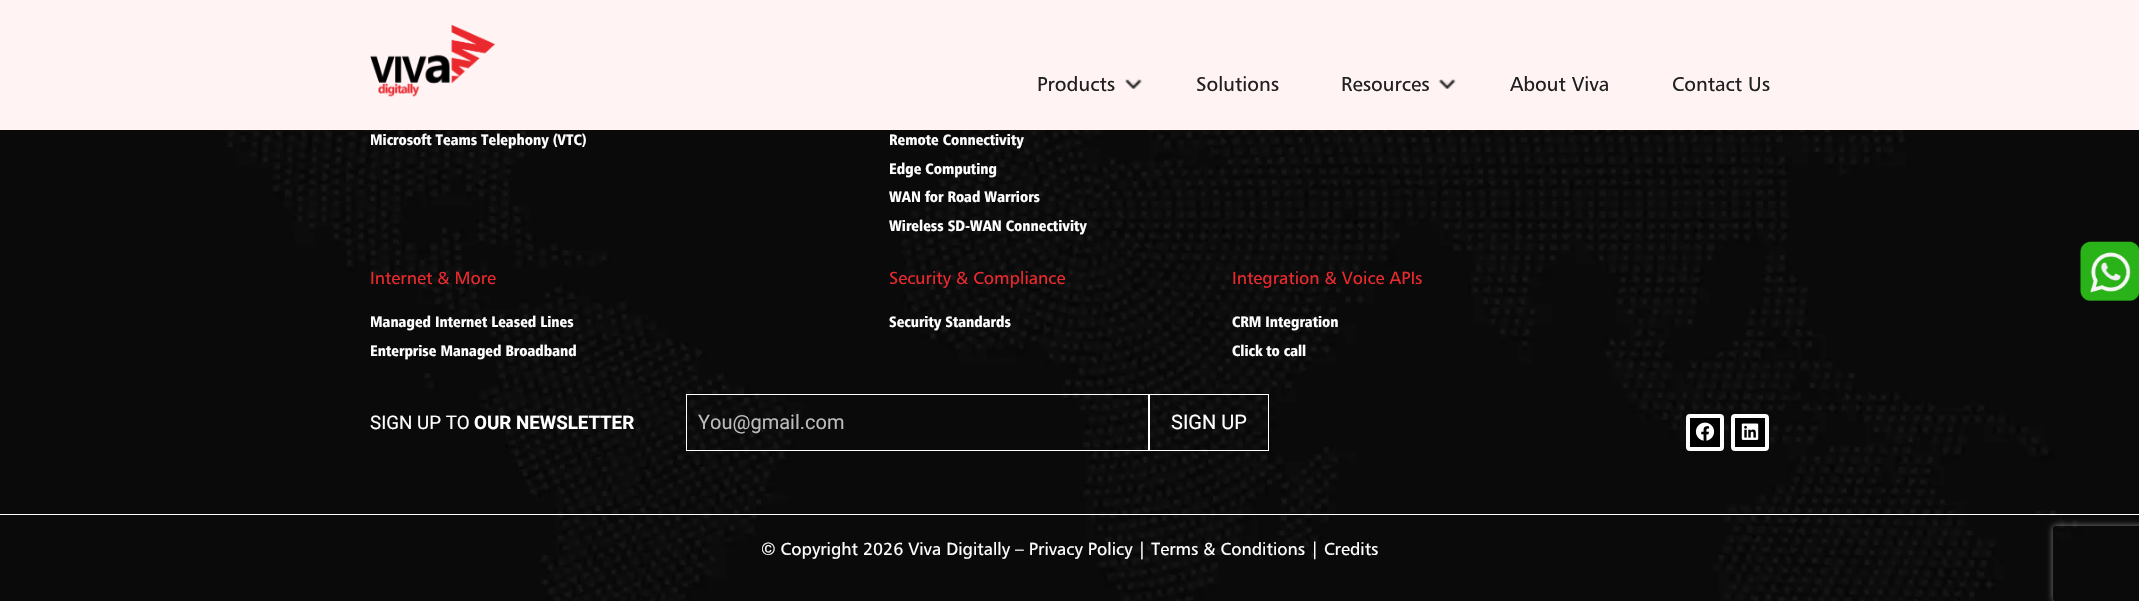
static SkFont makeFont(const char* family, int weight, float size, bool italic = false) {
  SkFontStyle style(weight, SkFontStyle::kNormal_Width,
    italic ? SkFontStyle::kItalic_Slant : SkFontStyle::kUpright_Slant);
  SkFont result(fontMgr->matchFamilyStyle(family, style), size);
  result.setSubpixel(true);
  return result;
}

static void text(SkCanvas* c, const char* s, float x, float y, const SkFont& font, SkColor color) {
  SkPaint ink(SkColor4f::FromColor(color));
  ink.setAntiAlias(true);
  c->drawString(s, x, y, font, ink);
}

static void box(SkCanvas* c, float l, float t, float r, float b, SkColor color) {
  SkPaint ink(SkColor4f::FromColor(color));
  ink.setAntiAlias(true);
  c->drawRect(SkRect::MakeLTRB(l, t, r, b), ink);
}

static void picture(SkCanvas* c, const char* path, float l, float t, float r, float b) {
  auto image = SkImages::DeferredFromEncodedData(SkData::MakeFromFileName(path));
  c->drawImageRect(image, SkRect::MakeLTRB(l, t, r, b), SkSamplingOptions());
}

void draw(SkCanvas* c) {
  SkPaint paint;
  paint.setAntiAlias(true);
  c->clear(0xffffffff);
  box(c, 0, 0, 2139, 130, 0xfffff3f4);
  picture(c, "img_01.png", 370, 25, 495, 97);
  SkFont face1 = makeFont("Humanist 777", 400, 20);
  text(c, "Products", 1037, 91, face1, 0xff202020);
  picture(c, "img_02.png", 1125, 79, 1142, 89);
  text(c, "Solutions", 1196, 91, face1, 0xff202020);
  text(c, "Resources", 1341, 91, face1, 0xff202020);
  picture(c, "img_03.png", 1438, 79, 1456, 89);
  text(c, "About Viva", 1510, 91, face1, 0xff202020);
  text(c, "Contact Us", 1672, 91, face1, 0xff202020);
  picture(c, "img_05.png", 0, 130, 2139, 601);
  picture(c, "img_04.png", 2080, 241, 2139, 301);
  SkFont face2 = makeFont("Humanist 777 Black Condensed", 900, 15);
  text(c, "Microsoft Teams Telephony (VTC)", 370, 145, face2, 0xffffffff);
  text(c, "Remote Connectivity", 889, 145, face2, 0xffffffff);
  text(c, "Edge Computing", 889, 174, face2, 0xffffffff);
  text(c, "WAN for Road Warriors", 889, 202, face2, 0xffffffff);
  text(c, "Wireless SD-WAN Connectivity", 889, 231, face2, 0xffffffff);
  SkFont face3 = makeFont("Humanist 777", 400, 17.5f);
  text(c, "Internet & More", 370, 284, face3, 0xffe9292c);
  text(c, "Managed Internet Leased Lines", 370, 327, face2, 0xffffffff);
  text(c, "Enterprise Managed Broadband", 370, 356, face2, 0xffffffff);
  text(c, "Security & Compliance", 889, 284, face3, 0xffe9292c);
  text(c, "Security Standards", 889, 327, face2, 0xffffffff);
  text(c, "Integration & Voice APIs", 1232, 284, face3, 0xffe9292c);
  text(c, "CRM Integration", 1232, 327, face2, 0xffffffff);
  text(c, "Click to call", 1232, 356, face2, 0xffffffff);
  SkFont face4 = makeFont("Roboto", 400, 18.75f);
  text(c, "SIGN UP TO", 370, 429, face4, 0xffffffff);
  SkFont face5 = makeFont("Roboto", 700, 18.75f);
  text(c, "OUR NEWSLETTER", 474, 429, face5, 0xffffffff);
  paint.setStyle(SkPaint::kStroke_Style);
  paint.setStrokeWidth(1);
  paint.setColor(0xffffffff);
  c->drawRect(SkRect::MakeLTRB(686.5f, 394.5f, 1148.5f, 450.5f), paint);
  SkFont face6 = makeFont("Roboto", 400, 20);
  text(c, "You@gmail.com", 698, 429, face6, 0xffbbbbbb);
  c->drawRect(SkRect::MakeLTRB(1149.5f, 394.5f, 1268.5f, 450.5f), paint);
  text(c, "SIGN UP", 1171, 429, face6, 0xffffffff);
  paint.setStyle(SkPaint::kFill_Style);
  paint.setColor(0xff000000);
  c->drawRoundRect(SkRect::MakeLTRB(1688, 416, 1722, 449), 2, 2, paint);
  paint.setStyle(SkPaint::kStroke_Style);
  paint.setStrokeWidth(4);
  paint.setColor(0xfffdfdfd);
  c->drawRoundRect(SkRect::MakeLTRB(1688, 416, 1722, 449), 2, 2, paint);
  picture(c, "img_06.png", 1695, 422, 1715, 441);
  paint.setStyle(SkPaint::kFill_Style);
  paint.setColor(0xff000000);
  c->drawRoundRect(SkRect::MakeLTRB(1733, 416, 1767, 449), 2, 2, paint);
  paint.setStyle(SkPaint::kStroke_Style);
  paint.setColor(0xfffdfdfd);
  c->drawRoundRect(SkRect::MakeLTRB(1733, 416, 1767, 449), 2, 2, paint);
  picture(c, "img_07.png", 1741, 423, 1759, 440);
  box(c, 0, 514, 2139, 515, 0xffffffff);
  text(c, "© Copyright 2026 Viva Digitally – Privacy Policy | Terms & Conditions | Credits", 761, 555, face3, 0xffffffff);
  c->save();
  c->clipPath(SkPathBuilder(SkPathFillType::kEvenOdd).moveTo(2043, 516).lineTo(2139, 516).lineTo(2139, 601).lineTo(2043, 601).close().moveTo(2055.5f, 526).lineTo(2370.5f, 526).cubicTo(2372, 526, 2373, 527, 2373, 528.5f).lineTo(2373, 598.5f).cubicTo(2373, 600, 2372, 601, 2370.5f, 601).lineTo(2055.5f, 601).cubicTo(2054, 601, 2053, 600, 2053, 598.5f).lineTo(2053, 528.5f).cubicTo(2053, 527, 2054, 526, 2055.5f, 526).close().detach(), true);
  paint.setStyle(SkPaint::kFill_Style);
  paint.setColor(0xff808080);
  paint.setMaskFilter(SkMaskFilter::MakeBlur(kNormal_SkBlurStyle, 3));
  c->drawRoundRect(SkRect::MakeLTRB(2053, 526, 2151, 601), 2.5f, 2.5f, paint);
  paint.setMaskFilter(nullptr);
  c->restore();
}
